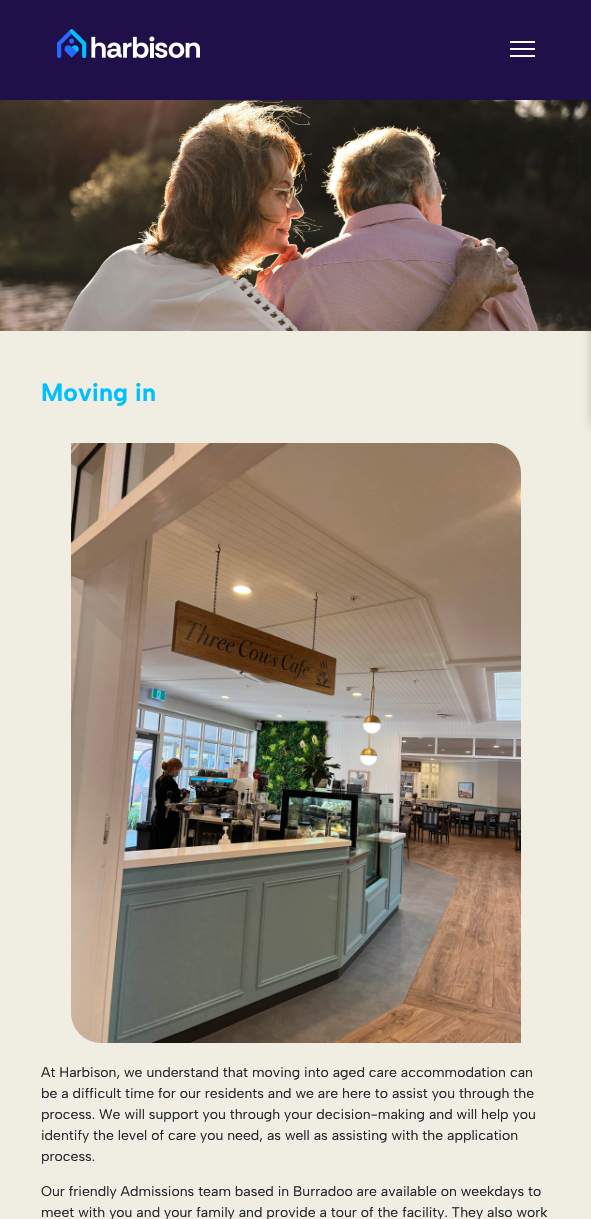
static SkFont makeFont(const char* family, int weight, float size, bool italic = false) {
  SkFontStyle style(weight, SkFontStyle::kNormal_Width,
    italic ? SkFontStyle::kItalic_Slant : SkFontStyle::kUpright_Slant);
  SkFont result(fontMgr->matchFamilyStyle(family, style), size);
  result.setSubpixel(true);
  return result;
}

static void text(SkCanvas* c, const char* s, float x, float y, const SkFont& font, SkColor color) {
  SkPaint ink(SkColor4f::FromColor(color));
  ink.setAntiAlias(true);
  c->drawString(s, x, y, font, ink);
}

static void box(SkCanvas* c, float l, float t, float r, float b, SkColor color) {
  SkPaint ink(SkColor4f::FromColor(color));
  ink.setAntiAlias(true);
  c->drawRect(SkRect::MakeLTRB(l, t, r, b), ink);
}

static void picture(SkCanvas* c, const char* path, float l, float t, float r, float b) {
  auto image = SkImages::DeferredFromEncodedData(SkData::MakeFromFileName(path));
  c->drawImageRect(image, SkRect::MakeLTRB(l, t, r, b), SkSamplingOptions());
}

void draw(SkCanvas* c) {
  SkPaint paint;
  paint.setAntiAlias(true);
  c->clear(0xfff0eee3);
  box(c, 0, 0, 591, 100, 0xff1f1049);
  picture(c, "img_01.png", 57, 29, 200, 59);
  box(c, 510, 41, 535, 43, 0xffffffff);
  box(c, 510, 48, 535, 50, 0xffffffff);
  box(c, 510, 55, 535, 57, 0xffffffff);
  picture(c, "img_02.png", 0, 100, 591, 331);
  SkFont face1 = makeFont("Albert Sans", 700, 25);
  text(c, "Moving in", 41, 401, face1, 0xff00bfff);
  picture(c, "img_03.png", 71, 443, 521, 1043);
  SkFont face2 = makeFont("Albert Sans", 400, 14);
  text(c, "At Harbison, we understand that moving into aged care accommodation can", 41, 1077, face2, 0xff212529);
  text(c, "be a difficult time for our residents and we are here to assist you through the", 41, 1098, face2, 0xff212529);
  text(c, "process. We will support you through your decision-making and will help you", 41, 1119, face2, 0xff212529);
  text(c, "identify the level of care you need, as well as assisting with the application", 41, 1140, face2, 0xff212529);
  text(c, "process.", 41, 1161, face2, 0xff212529);
  text(c, "Our friendly Admissions team based in Burradoo are available on weekdays to", 41, 1196, face2, 0xff212529);
  text(c, "meet with you and your family and provide a tour of the facility. They also work", 41, 1217, face2, 0xff212529);
  paint.setColor(0x33000000);
  paint.setMaskFilter(SkMaskFilter::MakeBlur(kNormal_SkBlurStyle, 5));
  c->drawRect(SkRect::MakeLTRB(591, 310, 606, 425), paint);
  paint.setMaskFilter(nullptr);
}
